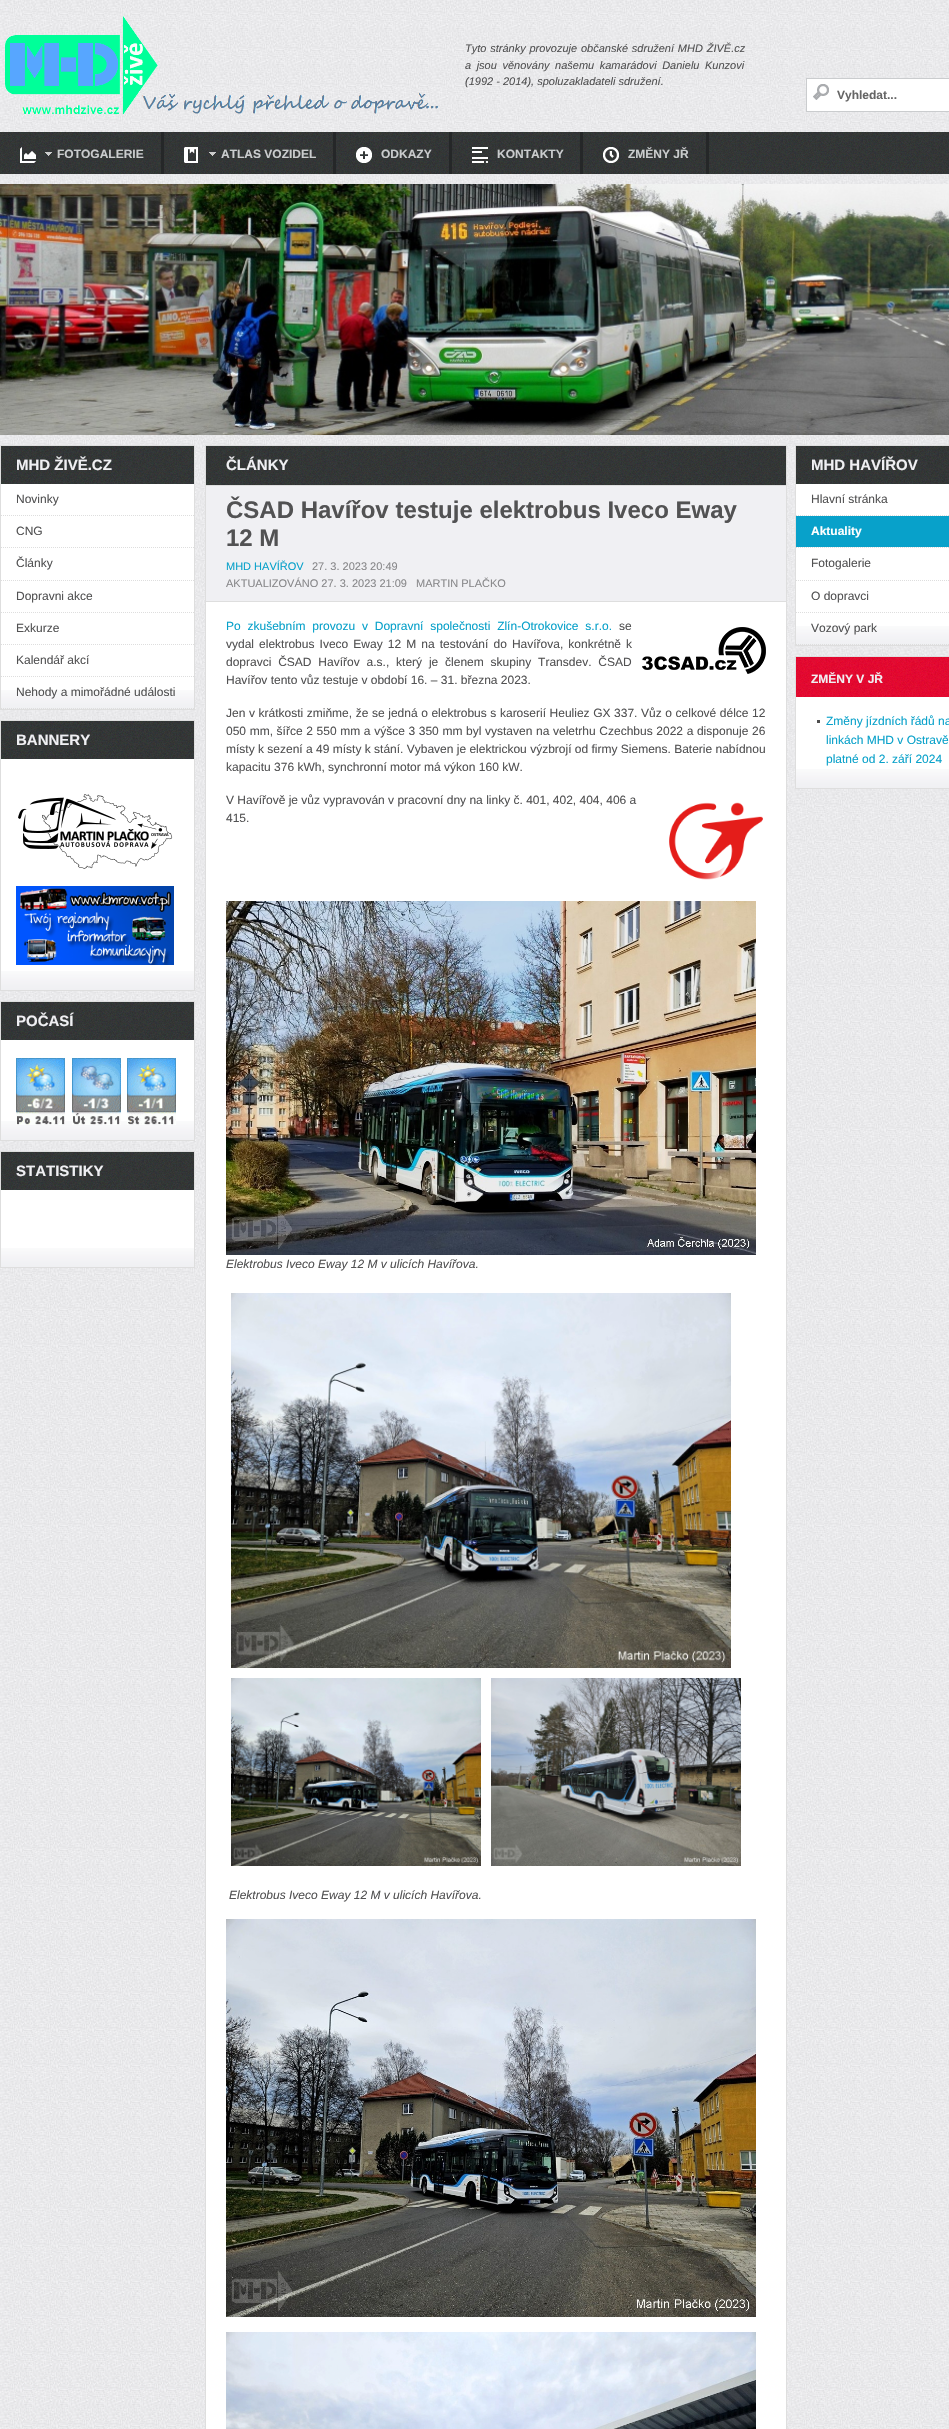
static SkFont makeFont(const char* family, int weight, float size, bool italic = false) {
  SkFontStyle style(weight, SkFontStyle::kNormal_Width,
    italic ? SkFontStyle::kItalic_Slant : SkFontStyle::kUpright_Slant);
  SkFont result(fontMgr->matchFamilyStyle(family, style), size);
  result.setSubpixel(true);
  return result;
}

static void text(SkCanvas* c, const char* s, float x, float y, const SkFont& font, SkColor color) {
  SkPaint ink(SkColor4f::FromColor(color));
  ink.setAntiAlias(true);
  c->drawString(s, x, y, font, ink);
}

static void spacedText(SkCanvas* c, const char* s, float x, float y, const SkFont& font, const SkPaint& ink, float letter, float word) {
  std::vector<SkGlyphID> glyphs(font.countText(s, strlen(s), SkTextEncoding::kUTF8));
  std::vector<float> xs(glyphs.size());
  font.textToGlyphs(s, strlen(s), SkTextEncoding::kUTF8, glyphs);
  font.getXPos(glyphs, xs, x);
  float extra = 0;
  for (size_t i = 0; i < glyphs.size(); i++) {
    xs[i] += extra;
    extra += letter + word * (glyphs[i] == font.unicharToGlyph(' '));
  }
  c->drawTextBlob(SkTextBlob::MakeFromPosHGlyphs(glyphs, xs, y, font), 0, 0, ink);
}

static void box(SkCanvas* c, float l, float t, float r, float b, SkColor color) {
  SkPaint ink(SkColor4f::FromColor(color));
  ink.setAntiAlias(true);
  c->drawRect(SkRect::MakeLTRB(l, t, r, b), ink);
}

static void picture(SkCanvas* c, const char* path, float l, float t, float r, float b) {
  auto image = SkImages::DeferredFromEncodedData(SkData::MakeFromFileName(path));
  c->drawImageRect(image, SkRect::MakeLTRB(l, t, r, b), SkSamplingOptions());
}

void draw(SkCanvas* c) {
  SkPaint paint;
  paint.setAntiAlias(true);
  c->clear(0xffffffff);
  picture(c, "img_01.png", 0, 0, 949, 2429);
  picture(c, "img_02.png", 5, 16, 439, 115);
  SkFont face1 = makeFont("Liberation Sans", 400, 11, true);
  paint.setColor(0xff525253);
  spacedText(c, "Tyto stránky provozuje občanské sdružení MHD ŽIVĚ.cz", 465, 52, face1, paint, 0, 0.75f);
  spacedText(c, "a jsou věnovány našemu kamarádovi Danielu Kunzovi", 465, 69, face1, paint, 0, 2.5f);
  text(c, "(1992 - 2014), spoluzakladateli sdružení.", 465, 85, face1, 0xff525253);
  box(c, 807, 79, 949, 111, 0xffffffff);
  picture(c, "img_03.png", 813, 84, 829, 100);
  paint.setStyle(SkPaint::kStroke_Style);
  paint.setStrokeWidth(1);
  paint.setColor(0xffcaccce);
  c->drawRect(SkRect::MakeLTRB(806.5f, 78.5f, 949.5f, 111.5f), paint);
  SkFont face2 = makeFont("Liberation Sans", 700, 12);
  text(c, "Vyhledat...", 837, 99, face2, 0xff666666);
  box(c, 0, 132, 949, 174, 0xff313435);
  picture(c, "img_04.png", 0, 132, 949, 174);
  box(c, 161, 132, 164, 174, 0xff252728);
  picture(c, "img_05.png", 20, 147, 36, 163);
  picture(c, "img_06.png", 45, 152, 52, 156);
  text(c, "FOTOGALERIE", 57, 158, face2, 0xffcacccd);
  box(c, 333, 132, 336, 174, 0xff252728);
  picture(c, "img_07.png", 184, 147, 198, 163);
  picture(c, "img_08.png", 209, 152, 216, 156);
  text(c, "ATLAS VOZIDEL", 221, 158, face2, 0xffcacccd);
  box(c, 449, 132, 452, 174, 0xff252728);
  picture(c, "img_09.png", 356, 147, 372, 163);
  text(c, "ODKAZY", 381, 158, face2, 0xffcacccd);
  box(c, 580, 132, 583, 174, 0xff252728);
  picture(c, "img_10.png", 472, 147, 488, 163);
  text(c, "KONTAKTY", 497, 158, face2, 0xffcacccd);
  box(c, 706, 132, 709, 174, 0xff252728);
  picture(c, "img_11.png", 603, 147, 619, 163);
  text(c, "ZMĚNY JŘ", 628, 158, face2, 0xffcacccd);
  picture(c, "img_12.png", 0, 184, 949, 435);
  box(c, 1, 484, 194, 690, 0xffffffff);
  picture(c, "img_13.png", 1, 690, 194, 709);
  paint.setColor(0xffdedede);
  c->drawRect(SkRect::MakeLTRB(0.5f, 445.5f, 194.5f, 709.5f), paint);
  box(c, 1, 446, 194, 484, 0xff313435);
  picture(c, "img_14.png", 1, 446, 194, 484);
  SkFont face3 = makeFont("Liberation Sans", 700, 15);
  text(c, "MHD ŽIVĚ.CZ", 16, 470, face3, 0xfff0f0f3);
  paint.setPathEffect(SkDashPathEffect::Make({{1, 1}}, 0));
  c->drawPath(SkPathBuilder().moveTo(1, 515.5f).lineTo(194, 515.5f).detach(), paint);
  paint.setPathEffect(nullptr);
  SkFont face4 = makeFont("Liberation Sans", 400, 12);
  text(c, "Novinky", 16, 503, face4, 0xff525253);
  paint.setPathEffect(SkDashPathEffect::Make({{1, 1}}, 0));
  c->drawPath(SkPathBuilder().moveTo(1, 547.5f).lineTo(194, 547.5f).detach(), paint);
  paint.setPathEffect(nullptr);
  text(c, "CNG", 16, 535, face4, 0xff525253);
  paint.setPathEffect(SkDashPathEffect::Make({{1, 1}}, 0));
  c->drawPath(SkPathBuilder().moveTo(1, 580.5f).lineTo(194, 580.5f).detach(), paint);
  paint.setPathEffect(nullptr);
  text(c, "Články", 16, 567, face4, 0xff525253);
  paint.setPathEffect(SkDashPathEffect::Make({{1, 1}}, 0));
  c->drawPath(SkPathBuilder().moveTo(1, 612.5f).lineTo(194, 612.5f).detach(), paint);
  paint.setPathEffect(nullptr);
  text(c, "Dopravni akce", 16, 600, face4, 0xff525253);
  paint.setPathEffect(SkDashPathEffect::Make({{1, 1}}, 0));
  c->drawPath(SkPathBuilder().moveTo(1, 644.5f).lineTo(194, 644.5f).detach(), paint);
  paint.setPathEffect(nullptr);
  text(c, "Exkurze", 16, 632, face4, 0xff525253);
  paint.setPathEffect(SkDashPathEffect::Make({{1, 1}}, 0));
  c->drawPath(SkPathBuilder().moveTo(1, 676.5f).lineTo(194, 676.5f).detach(), paint);
  paint.setPathEffect(nullptr);
  text(c, "Kalendář akcí", 16, 664, face4, 0xff525253);
  paint.setPathEffect(SkDashPathEffect::Make({{1, 1}}, 0));
  c->drawPath(SkPathBuilder().moveTo(1, 708.5f).lineTo(194, 708.5f).detach(), paint);
  paint.setPathEffect(nullptr);
  text(c, "Nehody a mimořádné události", 16, 696, face4, 0xff525253);
  box(c, 1, 759, 194, 971, 0xffffffff);
  picture(c, "img_13.png", 1, 971, 194, 990);
  c->drawRect(SkRect::MakeLTRB(0.5f, 720.5f, 194.5f, 990.5f), paint);
  box(c, 1, 721, 194, 759, 0xff313435);
  picture(c, "img_14.png", 1, 721, 194, 759);
  text(c, "BANNERY", 16, 745, face3, 0xfff0f0f3);
  picture(c, "img_15.png", 18, 794, 173, 869);
  picture(c, "img_16.png", 16, 886, 174, 965);
  box(c, 1, 1040, 194, 1121, 0xffffffff);
  picture(c, "img_13.png", 1, 1121, 194, 1140);
  c->drawRect(SkRect::MakeLTRB(0.5f, 1001.5f, 194.5f, 1140.5f), paint);
  box(c, 1, 1002, 194, 1040, 0xff313435);
  picture(c, "img_14.png", 1, 1002, 194, 1040);
  text(c, "POČASÍ", 16, 1026, face3, 0xfff0f0f3);
  picture(c, "img_17.png", 16, 1058, 65, 1125);
  picture(c, "img_18.png", 72, 1058, 121, 1125);
  picture(c, "img_19.png", 127, 1058, 176, 1125);
  box(c, 1, 1190, 194, 1248, 0xffffffff);
  picture(c, "img_13.png", 1, 1248, 194, 1267);
  c->drawRect(SkRect::MakeLTRB(0.5f, 1151.5f, 194.5f, 1267.5f), paint);
  box(c, 1, 1152, 194, 1190, 0xff313435);
  picture(c, "img_14.png", 1, 1152, 194, 1190);
  text(c, "STATISTIKY", 16, 1176, face3, 0xfff0f0f3);
  box(c, 206, 602, 786, 2429, 0xffffffff);
  c->drawRect(SkRect::MakeLTRB(205.5f, 445.5f, 786.5f, 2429.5f), paint);
  box(c, 206, 446, 786, 485, 0xff313435);
  picture(c, "img_20.png", 206, 446, 786, 485);
  text(c, "ČLÁNKY", 226, 470, face3, 0xfff0f0f3);
  box(c, 206, 486, 786, 601, 0xfff0f0f3);
  box(c, 206, 485, 786, 486, 0xffdedede);
  SkFont face5 = makeFont("Liberation Sans", 700, 24);
  text(c, "ČSAD Havířov testuje elektrobus Iveco Eway", 226, 518, face5, 0xff525253);
  text(c, "12 M", 226, 546, face5, 0xff525253);
  box(c, 206, 601, 786, 602, 0xffdedede);
  SkFont face6 = makeFont("Liberation Sans", 400, 11);
  text(c, "MHD HAVÍŘOV", 226, 570, face6, 0xff08a1ca);
  text(c, "27. 3. 2023 20:49", 312, 570, face6, 0xff88888a);
  text(c, "AKTUALIZOVÁNO 27. 3. 2023 21:09", 226, 587, face6, 0xff88888a);
  text(c, "MARTIN PLAČKO", 416, 587, face6, 0xff88888a);
  paint.setStyle(SkPaint::kFill_Style);
  paint.setColor(0xff08a1ca);
  spacedText(c, "Po zkušebním provozu v Dopravní společnosti Zlín-Otrokovice s.r.o.", 226, 630, face4, paint, 0, 3.5f);
  text(c, "se", 619, 630, face4, 0xff525253);
  picture(c, "img_21.png", 642, 627, 766, 674);
  paint.setColor(0xff525253);
  spacedText(c, "vydal elektrobus Iveco Eway 12 M na testování do Havířova, konkrétně k", 226, 648, face4, paint, 0, 1.75f);
  spacedText(c, "dopravci ČSAD Havířov a.s., který je členem skupiny Transdev. ČSAD", 226, 666, face4, paint, 0, 3.5f);
  text(c, "Havířov tento vůz testuje v období 16. – 31. března 2023.", 226, 684, face4, 0xff525253);
  spacedText(c, "Jen v krátkosti zmiňme, že se jedná o elektrobus s karoserií Heuliez GX 337. Vůz o celkové délce 12", 226, 717, face4, paint, 0, 0.25f);
  spacedText(c, "050 mm, šířce 2 550 mm a výšce 3 350 mm byl vystaven na veletrhu Czechbus 2022 a disponuje 26", 226, 735, face4, paint, 0, 0.3f);
  text(c, "místy k sezení a 49 místy k stání. Vybaven je elektrickou výzbrojí od firmy Siemens. Baterie nabídnou", 226, 753, face4, 0xff525253);
  text(c, "kapacitu 376 kWh, synchronní motor má výkon 160 kW.", 226, 771, face4, 0xff525253);
  text(c, "V Havířově je vůz vypravován v pracovní dny na linky č. 401, 402, 404, 406 a", 226, 804, face4, 0xff525253);
  text(c, "415.", 226, 822, face4, 0xff525253);
  picture(c, "img_22.png", 669, 802, 763, 880);
  picture(c, "img_23.png", 226, 901, 756, 1255);
  SkFont face7 = makeFont("Liberation Sans", 400, 12, true);
  text(c, "Elektrobus Iveco Eway 12 M v ulicích Havířova.", 226, 1268, face7, 0xff525253);
  picture(c, "img_24.png", 231, 1293, 731, 1668);
  picture(c, "img_25.png", 231, 1678, 481, 1866);
  picture(c, "img_26.png", 491, 1678, 741, 1866);
  text(c, "Elektrobus Iveco Eway 12 M v ulicích Havířova.", 229, 1899, face7, 0xff525253);
  picture(c, "img_27.png", 226, 1919, 756, 2317);
  picture(c, "img_28.png", 226, 2332, 756, 2429);
  box(c, 796, 484, 949, 626, 0xffffffff);
  picture(c, "img_29.png", 796, 626, 949, 645);
  paint.setStyle(SkPaint::kStroke_Style);
  paint.setColor(0xffdedede);
  c->drawRect(SkRect::MakeLTRB(795.5f, 445.5f, 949.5f, 645.5f), paint);
  box(c, 796, 446, 949, 484, 0xff313435);
  picture(c, "img_30.png", 796, 446, 949, 484);
  text(c, "MHD HAVÍŘOV", 811, 470, face3, 0xfff0f0f3);
  paint.setPathEffect(SkDashPathEffect::Make({{1, 1}}, 0));
  c->drawPath(SkPathBuilder().moveTo(796, 515.5f).lineTo(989, 515.5f).detach(), paint);
  paint.setPathEffect(nullptr);
  text(c, "Hlavní stránka", 811, 503, face4, 0xff525253);
  paint.setPathEffect(SkDashPathEffect::Make({{1, 1}}, 0));
  c->drawPath(SkPathBuilder().moveTo(796, 547.5f).lineTo(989, 547.5f).detach(), paint);
  paint.setPathEffect(nullptr);
  box(c, 796, 516, 949, 547, 0xff08a1ca);
  text(c, "Aktuality", 811, 535, face2, 0xffffffff);
  paint.setPathEffect(SkDashPathEffect::Make({{1, 1}}, 0));
  c->drawPath(SkPathBuilder().moveTo(796, 580.5f).lineTo(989, 580.5f).detach(), paint);
  paint.setPathEffect(nullptr);
  text(c, "Fotogalerie", 811, 567, face4, 0xff525253);
  paint.setPathEffect(SkDashPathEffect::Make({{1, 1}}, 0));
  c->drawPath(SkPathBuilder().moveTo(796, 612.5f).lineTo(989, 612.5f).detach(), paint);
  paint.setPathEffect(nullptr);
  text(c, "O dopravci", 811, 600, face4, 0xff525253);
  paint.setPathEffect(SkDashPathEffect::Make({{1, 1}}, 0));
  c->drawPath(SkPathBuilder().moveTo(796, 644.5f).lineTo(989, 644.5f).detach(), paint);
  paint.setPathEffect(nullptr);
  text(c, "Vozový park", 811, 632, face4, 0xff525253);
  box(c, 796, 697, 949, 769, 0xffffffff);
  picture(c, "img_29.png", 796, 769, 949, 788);
  c->drawRect(SkRect::MakeLTRB(795.5f, 656.5f, 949.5f, 788.5f), paint);
  box(c, 796, 657, 949, 697, 0xffff002e);
  picture(c, "img_31.png", 796, 657, 949, 697);
  text(c, "ZMĚNY V JŘ", 811, 683, face2, 0xfff0f0f3);
  box(c, 817, 720, 820, 723, 0xff4e4e4e);
  text(c, "Změny jízdních řádů na", 826, 725, face4, 0xff08a1ca);
  text(c, "linkách MHD v Ostravě", 826, 744, face4, 0xff08a1ca);
  text(c, "platné od 2. září 2024", 826, 763, face4, 0xff08a1ca);
}
